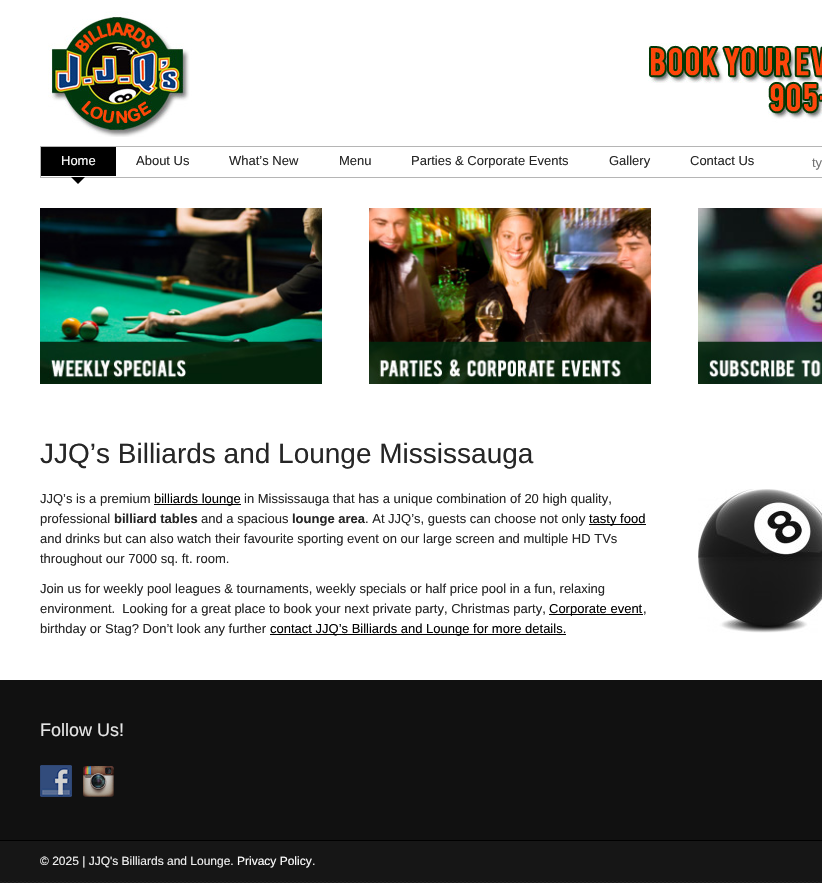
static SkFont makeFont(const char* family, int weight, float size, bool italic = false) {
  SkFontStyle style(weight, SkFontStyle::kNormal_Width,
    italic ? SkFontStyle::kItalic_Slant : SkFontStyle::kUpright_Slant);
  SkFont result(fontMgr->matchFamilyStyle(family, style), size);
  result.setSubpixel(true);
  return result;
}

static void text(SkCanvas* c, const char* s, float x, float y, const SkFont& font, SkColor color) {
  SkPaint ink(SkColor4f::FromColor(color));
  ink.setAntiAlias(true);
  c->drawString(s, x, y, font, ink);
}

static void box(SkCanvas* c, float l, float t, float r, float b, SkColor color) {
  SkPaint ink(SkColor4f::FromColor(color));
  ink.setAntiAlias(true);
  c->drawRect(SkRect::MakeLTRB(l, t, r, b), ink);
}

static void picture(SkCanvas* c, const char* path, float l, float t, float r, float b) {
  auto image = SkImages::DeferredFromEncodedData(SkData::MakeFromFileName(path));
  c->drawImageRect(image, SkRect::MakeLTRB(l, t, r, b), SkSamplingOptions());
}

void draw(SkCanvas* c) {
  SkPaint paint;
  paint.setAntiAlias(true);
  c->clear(0xffffffff);
  picture(c, "img_01.png", 0, 881, 822, 883);
  picture(c, "img_02.png", 48, 11, 822, 137);
  paint.setStyle(SkPaint::kStroke_Style);
  paint.setStrokeWidth(1);
  paint.setColor(0xffb5b5b5);
  c->drawRect(SkRect::MakeLTRB(40.5f, 146.5f, 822.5f, 177.5f), paint);
  picture(c, "img_03.png", 71, 177, 85, 184);
  box(c, 41, 147, 116, 176, 0xff000000);
  SkFont face1 = makeFont("Liberation Sans", 400, 13);
  text(c, "Home", 61, 165, face1, 0xffffffff);
  text(c, "About Us", 136, 165, face1, 0xff262626);
  text(c, "What’s New", 229, 165, face1, 0xff262626);
  text(c, "Menu", 339, 165, face1, 0xff262626);
  text(c, "Parties & Corporate Events", 411, 165, face1, 0xff262626);
  text(c, "Gallery", 609, 165, face1, 0xff262626);
  text(c, "Contact Us", 690, 165, face1, 0xff262626);
  text(c, "ty", 812, 167, face1, 0xff737373);
  picture(c, "img_04.png", 40, 208, 322, 384);
  picture(c, "img_05.png", 369, 208, 651, 384);
  picture(c, "img_06.png", 698, 208, 822, 384);
  SkFont face2 = makeFont("Liberation Sans", 400, 28);
  text(c, "JJQ’s Billiards and Lounge Mississauga", 40, 463, face2, 0xff262626);
  text(c, "JJQ’s is a premium", 40, 503, face1, 0xff262626);
  box(c, 154, 504, 241, 505, 0xff000000);
  text(c, "billiards lounge", 154, 503, face1, 0xff000000);
  text(c, "in Mississauga that has a unique combination of 20 high quality,", 244, 503, face1, 0xff262626);
  text(c, "professional", 40, 523, face1, 0xff262626);
  SkFont face3 = makeFont("Liberation Sans", 700, 13);
  text(c, "billiard tables", 114, 523, face3, 0xff262626);
  text(c, "and a spacious", 201, 523, face1, 0xff262626);
  text(c, "lounge area", 292, 523, face3, 0xff262626);
  text(c, ". At JJQ’s, guests can choose not only", 365, 523, face1, 0xff262626);
  box(c, 589, 524, 646, 525, 0xff000000);
  text(c, "tasty food", 589, 523, face1, 0xff000000);
  text(c, "and drinks but can also watch their favourite sporting event on our large screen and multiple HD TVs", 40, 543, face1, 0xff262626);
  text(c, "throughout our 7000 sq. ft. room.", 40, 563, face1, 0xff262626);
  text(c, "Join us for weekly pool leagues & tournaments, weekly specials or half price pool in a fun, relaxing", 40, 593, face1, 0xff262626);
  text(c, "environment.  Looking for a great place to book your next private party, Christmas party,", 40, 613, face1, 0xff262626);
  box(c, 549, 614, 643, 615, 0xff000000);
  text(c, "Corporate event", 549, 613, face1, 0xff000000);
  text(c, ",", 643, 613, face1, 0xff262626);
  text(c, "birthday or Stag? Don’t look any further", 40, 633, face1, 0xff262626);
  box(c, 270, 634, 566, 635, 0xff000000);
  text(c, "contact JJQ’s Billiards and Lounge for more details.", 270, 633, face1, 0xff000000);
  picture(c, "img_07.png", 698, 489, 822, 633);
  box(c, 0, 680, 822, 840, 0xff111111);
  SkFont face4 = makeFont("Liberation Sans", 400, 18);
  text(c, "Follow Us!", 40, 736, face4, 0xffe5e5e5);
  picture(c, "img_08.png", 40, 765, 72, 797);
  picture(c, "img_09.png", 83, 766, 114, 797);
  box(c, 0, 841, 822, 881, 0xff161616);
  box(c, 0, 840, 822, 841, 0xff000000);
  SkFont face5 = makeFont("Liberation Sans", 400, 12);
  text(c, "© 2025 | JJQ's Billiards and Lounge.", 40, 865, face5, 0xffeeeeee);
  text(c, "Privacy Policy", 237, 865, face5, 0xffffffff);
  text(c, ".", 312, 865, face5, 0xffeeeeee);
}
